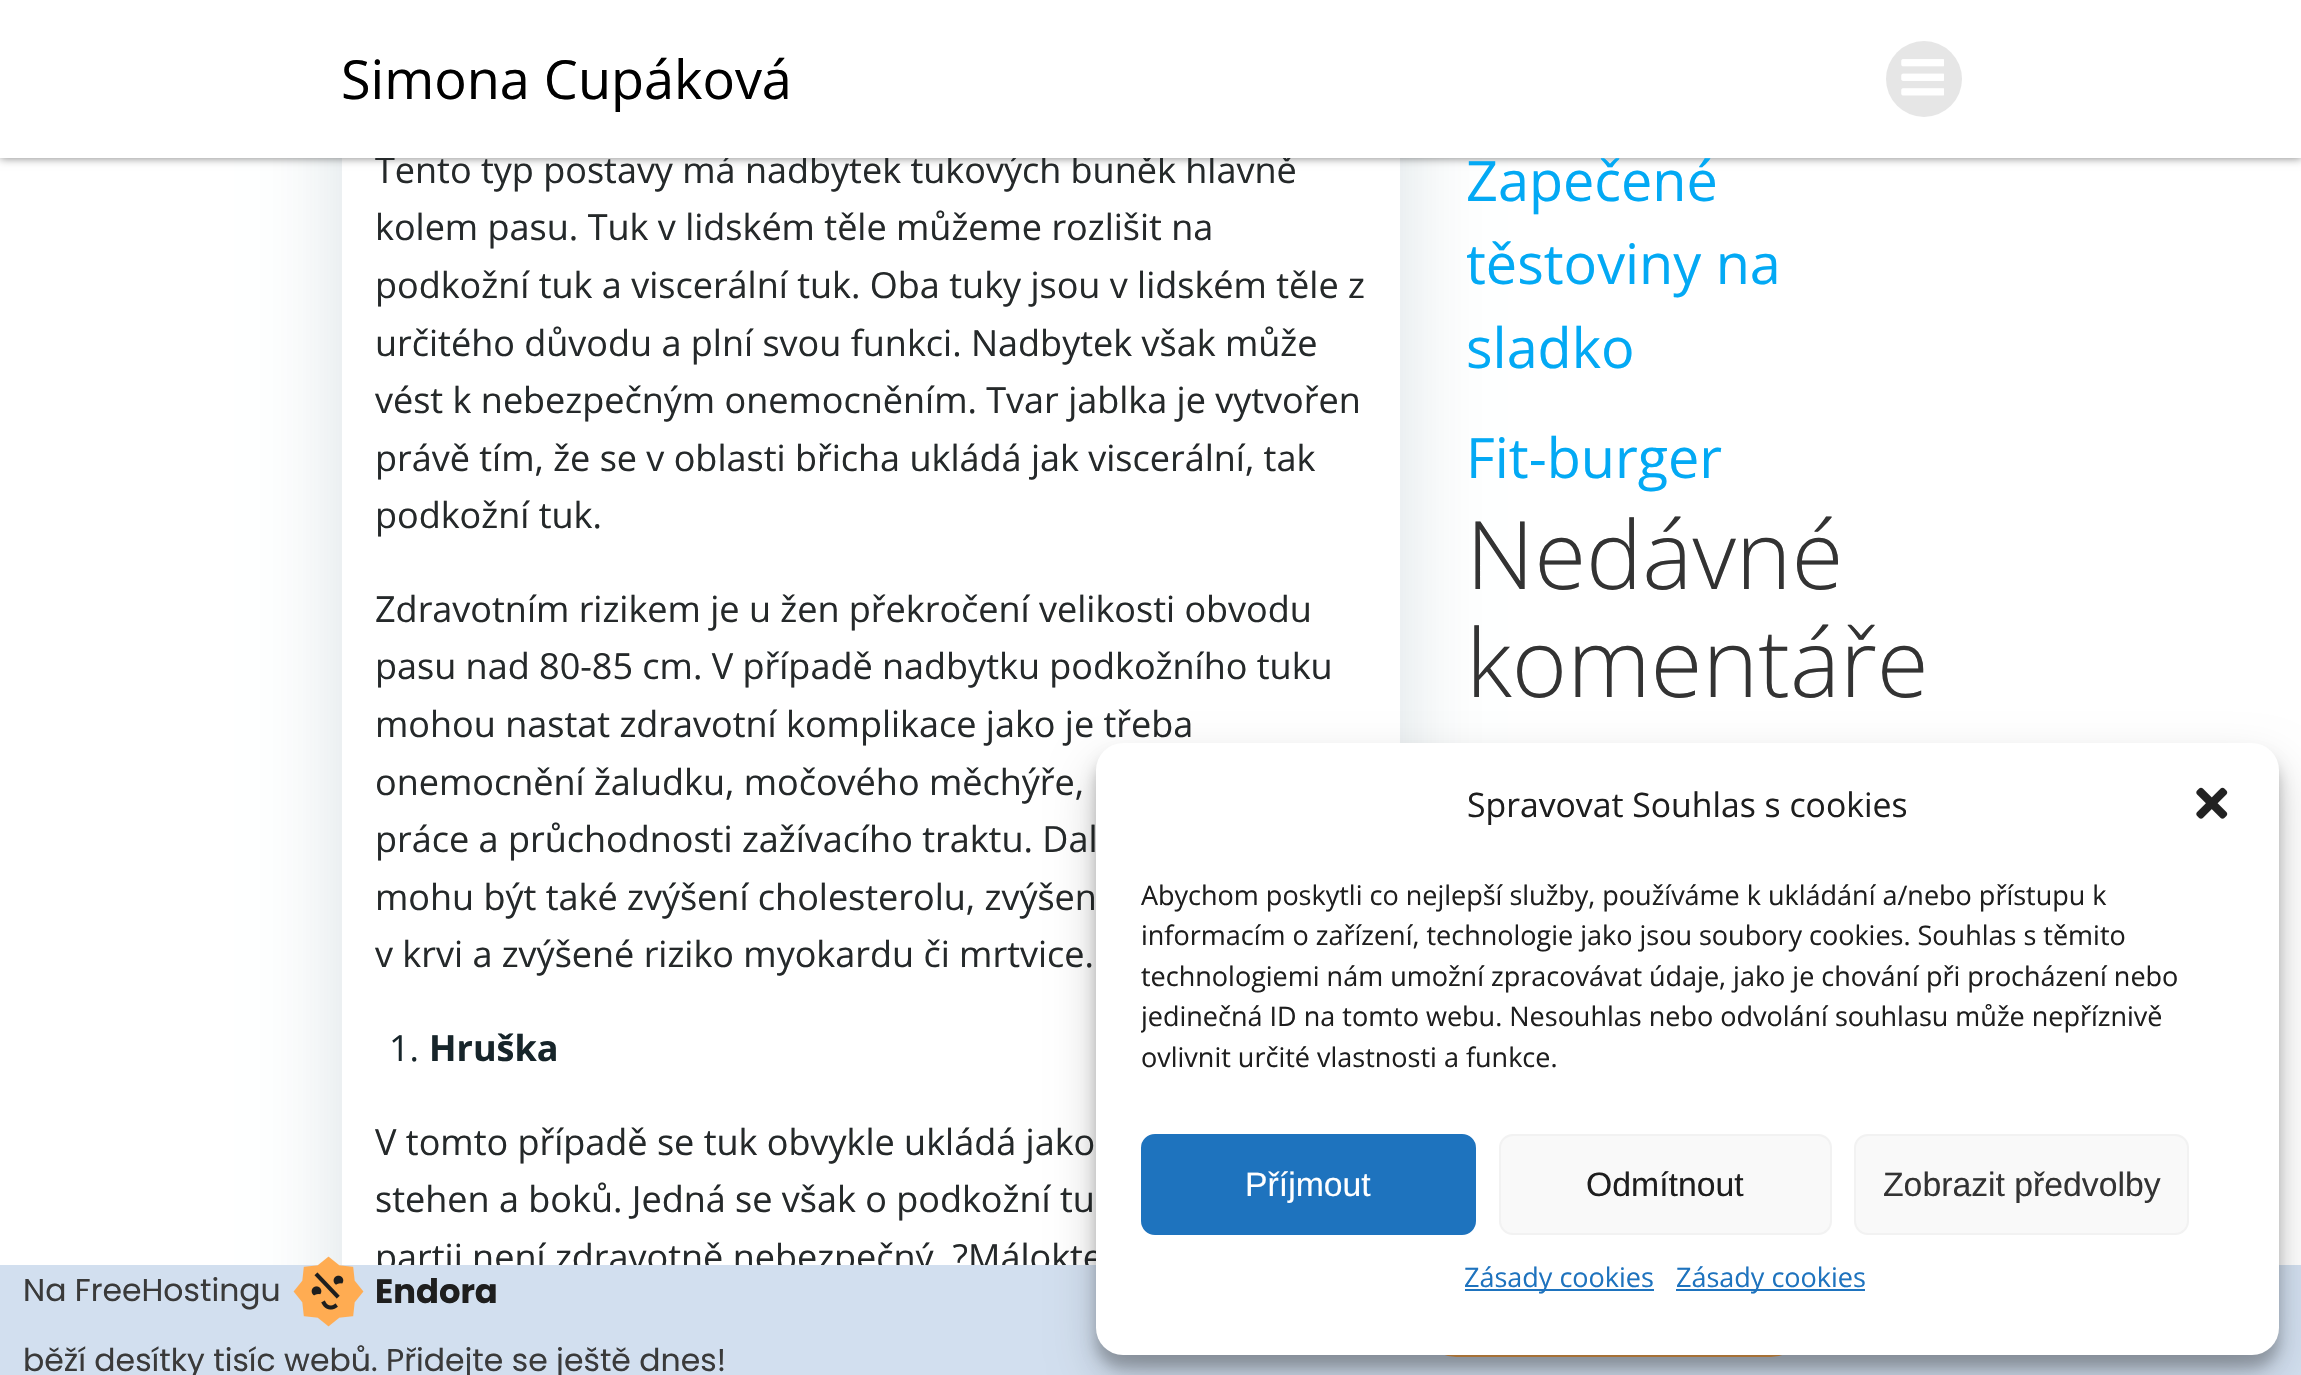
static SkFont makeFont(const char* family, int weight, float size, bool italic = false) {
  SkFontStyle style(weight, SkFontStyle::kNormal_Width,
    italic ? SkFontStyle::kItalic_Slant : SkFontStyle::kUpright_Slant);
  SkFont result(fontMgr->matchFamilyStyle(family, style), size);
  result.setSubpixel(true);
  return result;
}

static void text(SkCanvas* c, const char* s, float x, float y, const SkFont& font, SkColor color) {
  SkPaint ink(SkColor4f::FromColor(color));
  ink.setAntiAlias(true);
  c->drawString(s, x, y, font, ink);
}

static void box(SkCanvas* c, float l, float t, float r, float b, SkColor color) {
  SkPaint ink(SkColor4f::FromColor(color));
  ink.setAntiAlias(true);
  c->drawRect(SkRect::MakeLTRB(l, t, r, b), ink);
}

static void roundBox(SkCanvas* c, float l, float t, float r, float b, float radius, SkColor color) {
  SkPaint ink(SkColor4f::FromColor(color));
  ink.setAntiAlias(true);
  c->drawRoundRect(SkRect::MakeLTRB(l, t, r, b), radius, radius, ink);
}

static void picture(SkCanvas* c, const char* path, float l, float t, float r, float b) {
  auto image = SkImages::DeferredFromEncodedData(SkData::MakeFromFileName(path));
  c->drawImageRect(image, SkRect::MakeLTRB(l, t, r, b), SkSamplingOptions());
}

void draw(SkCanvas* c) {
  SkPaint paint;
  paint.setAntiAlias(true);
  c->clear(0xffffffff);
  paint.setColor(0x2601334a);
  paint.setMaskFilter(SkMaskFilter::MakeBlur(kNormal_SkBlurStyle, 45));
  c->drawRoundRect(SkRect::MakeLTRB(342, -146, 1400, 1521), 11, 11, paint);
  paint.setMaskFilter(nullptr);
  box(c, 342, 158, 1400, 1265, 0xffffffff);
  paint.setColor(0x80000000);
  paint.setMaskFilter(SkMaskFilter::MakeBlur(kNormal_SkBlurStyle, 4.5f));
  c->drawRect(SkRect::MakeLTRB(0, 0, 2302, 158), paint);
  paint.setMaskFilter(nullptr);
  SkFont face1 = makeFont("Open Sans", 400, 36);
  text(c, "Tento typ postavy má nadbytek tukových buněk hlavně", 375, 183, face1, 0xff25292a);
  box(c, 0, 0, 2301, 158, 0xffffffff);
  SkFont face2 = makeFont("Open Sans", 400, 54);
  text(c, "Simona Cupáková", 341, 99, face2, 0xff000000);
  paint.setColor(0xffe6e6e6);
  c->drawCircle(1924, 79, 38, paint);
  picture(c, "img_01.png", 1901, 59, 1944, 96);
  text(c, "kolem pasu. Tuk v lidském těle můžeme rozlišit na", 375, 240, face1, 0xff25292a);
  text(c, "podkožní tuk a viscerální tuk. Oba tuky jsou v lidském těle z", 375, 298, face1, 0xff25292a);
  text(c, "určitého důvodu a plní svou funkci. Nadbytek však může", 375, 356, face1, 0xff25292a);
  text(c, "vést k nebezpečným onemocněním. Tvar jablka je vytvořen", 375, 413, face1, 0xff25292a);
  text(c, "právě tím, že se v oblasti břicha ukládá jak viscerální, tak", 375, 471, face1, 0xff25292a);
  text(c, "podkožní tuk.", 375, 528, face1, 0xff25292a);
  text(c, "Zdravotním rizikem je u žen překročení velikosti obvodu", 375, 622, face1, 0xff25292a);
  text(c, "pasu nad 80-85 cm. V případě nadbytku podkožního tuku", 375, 679, face1, 0xff25292a);
  text(c, "mohou nastat zdravotní komplikace jako je třeba", 375, 737, face1, 0xff25292a);
  text(c, "onemocnění žaludku, močového měchýře,", 375, 795, face1, 0xff25292a);
  text(c, "práce a průchodnosti zažívacího traktu. Dal", 375, 852, face1, 0xff25292a);
  text(c, "mohu být také zvýšení cholesterolu, zvýšen", 375, 910, face1, 0xff25292a);
  text(c, "v krvi a zvýšené riziko myokardu či mrtvice.", 375, 967, face1, 0xff25292a);
  text(c, "1.", 389, 1061, face1, 0xff17252a);
  SkFont face3 = makeFont("Open Sans", 700, 36);
  text(c, "Hruška", 429, 1061, face3, 0xff17252a);
  text(c, "V tomto případě se tuk obvykle ukládá jako", 375, 1155, face1, 0xff25292a);
  text(c, "stehen a boků. Jedná se však o podkožní tu", 375, 1212, face1, 0xff25292a);
  text(c, "partii není zdravotně nebezpečný. ?Málokte", 375, 1270, face1, 0xff25292a);
  SkFont face4 = makeFont("Open Sans", 400, 55.75f);
  text(c, "Zapečené", 1466, 201, face4, 0xff03a9f4);
  c->save();
  c->clipRect(SkRect::MakeLTRB(1467, 0, 1962, 500));
  text(c, "těstoviny na", 1466, 284, face4, 0xff03a9f4);
  c->restore();
  text(c, "sladko", 1466, 368, face4, 0xff03a9f4);
  text(c, "Fit-burger", 1466, 478, face4, 0xff03a9f4);
  SkFont face5 = makeFont("Open Sans", 300, 94.5f);
  text(c, "Nedávné", 1466, 589, face5, 0xff333333);
  text(c, "komentáře", 1466, 697, face5, 0xff333333);
  box(c, 0, 1265, 2301, 1375, 0xffd2dfef);
  roundBox(c, 1420, 1285, 1807, 1357, 36, 0xffffac52);
  paint.setColor(0x3b000000);
  paint.setMaskFilter(SkMaskFilter::MakeBlur(kNormal_SkBlurStyle, 7));
  c->drawRoundRect(SkRect::MakeLTRB(1096, 756, 2279, 1368), 27, 27, paint);
  paint.setMaskFilter(nullptr);
  paint.setColor(0x30000000);
  paint.setMaskFilter(SkMaskFilter::MakeBlur(kNormal_SkBlurStyle, 22.5f));
  c->drawRoundRect(SkRect::MakeLTRB(1096, 765, 2279, 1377), 27, 27, paint);
  paint.setMaskFilter(nullptr);
  roundBox(c, 1096, 743, 2279, 1355, 27, 0xffffffff);
  SkFont face6 = makeFont("Open Sans", 400, 33.75f);
  text(c, "Spravovat Souhlas s cookies", 1467, 817, face6, 0xff1e1e1e);
  picture(c, "img_02.png", 2196, 787, 2228, 819);
  SkFont face7 = makeFont("Open Sans", 400, 27);
  text(c, "Abychom poskytli co nejlepší služby, používáme k ukládání a/nebo přístupu k", 1141, 905, face7, 0xff1e1e1e);
  text(c, "informacím o zařízení, technologie jako jsou soubory cookies. Souhlas s těmito", 1141, 945, face7, 0xff1e1e1e);
  text(c, "technologiemi nám umožní zpracovávat údaje, jako je chování při procházení nebo", 1141, 986, face7, 0xff1e1e1e);
  c->save();
  c->clipRect(SkRect::MakeLTRB(1141, 875, 2234, 1089));
  text(c, "jedinečná ID na tomto webu. Nesouhlas nebo odvolání souhlasu může nepříznivě", 1141, 1026, face7, 0xff1e1e1e);
  c->restore();
  text(c, "ovlivnit určité vlastnosti a funkce.", 1141, 1067, face7, 0xff1e1e1e);
  paint.setColor(0xff1e73be);
  c->drawRoundRect(SkRect::MakeLTRB(1142, 1135, 1475, 1234), 13, 13, paint);
  paint.setStyle(SkPaint::kStroke_Style);
  paint.setStrokeWidth(2);
  c->drawRoundRect(SkRect::MakeLTRB(1142, 1135, 1475, 1234), 13, 13, paint);
  SkFont face8 = makeFont("Liberation Sans", 400, 33.75f);
  text(c, "Příjmout", 1245, 1196, face8, 0xffffffff);
  paint.setStyle(SkPaint::kFill_Style);
  paint.setColor(0xfff9f9f9);
  c->drawRoundRect(SkRect::MakeLTRB(1500, 1135, 1831, 1234), 13, 13, paint);
  paint.setStyle(SkPaint::kStroke_Style);
  paint.setColor(0xfff2f2f2);
  c->drawRoundRect(SkRect::MakeLTRB(1500, 1135, 1831, 1234), 13, 13, paint);
  text(c, "Odmítnout", 1586, 1196, face8, 0xff1e1e1e);
  paint.setStyle(SkPaint::kFill_Style);
  paint.setColor(0xfff9f9f9);
  c->drawRoundRect(SkRect::MakeLTRB(1855, 1135, 2188, 1234), 13, 13, paint);
  paint.setStyle(SkPaint::kStroke_Style);
  paint.setColor(0xfff2f2f2);
  c->drawRoundRect(SkRect::MakeLTRB(1855, 1135, 2188, 1234), 13, 13, paint);
  text(c, "Zobrazit předvolby", 1883, 1196, face8, 0xff333333);
  box(c, 1465, 1289, 1654, 1291, 0xff1e73be);
  text(c, "Zásady cookies", 1464, 1287, face7, 0xff1e73be);
  box(c, 1676, 1289, 1865, 1291, 0xff1e73be);
  text(c, "Zásady cookies", 1676, 1287, face7, 0xff1e73be);
  SkFont face9 = makeFont("Poppins", 400, 31.5f);
  text(c, "Na FreeHostingu", 23, 1301, face9, 0xff3a3a3a);
  picture(c, "img_03.png", 293, 1256, 364, 1327);
  SkFont face10 = makeFont("Poppins", 700, 33.75f);
  text(c, "Endora", 375, 1303, face10, 0xff1e1e1e);
  text(c, "běží desítky tisíc webů. Přidejte se ještě dnes!", 23, 1371, face9, 0xff3a3a3a);
}
